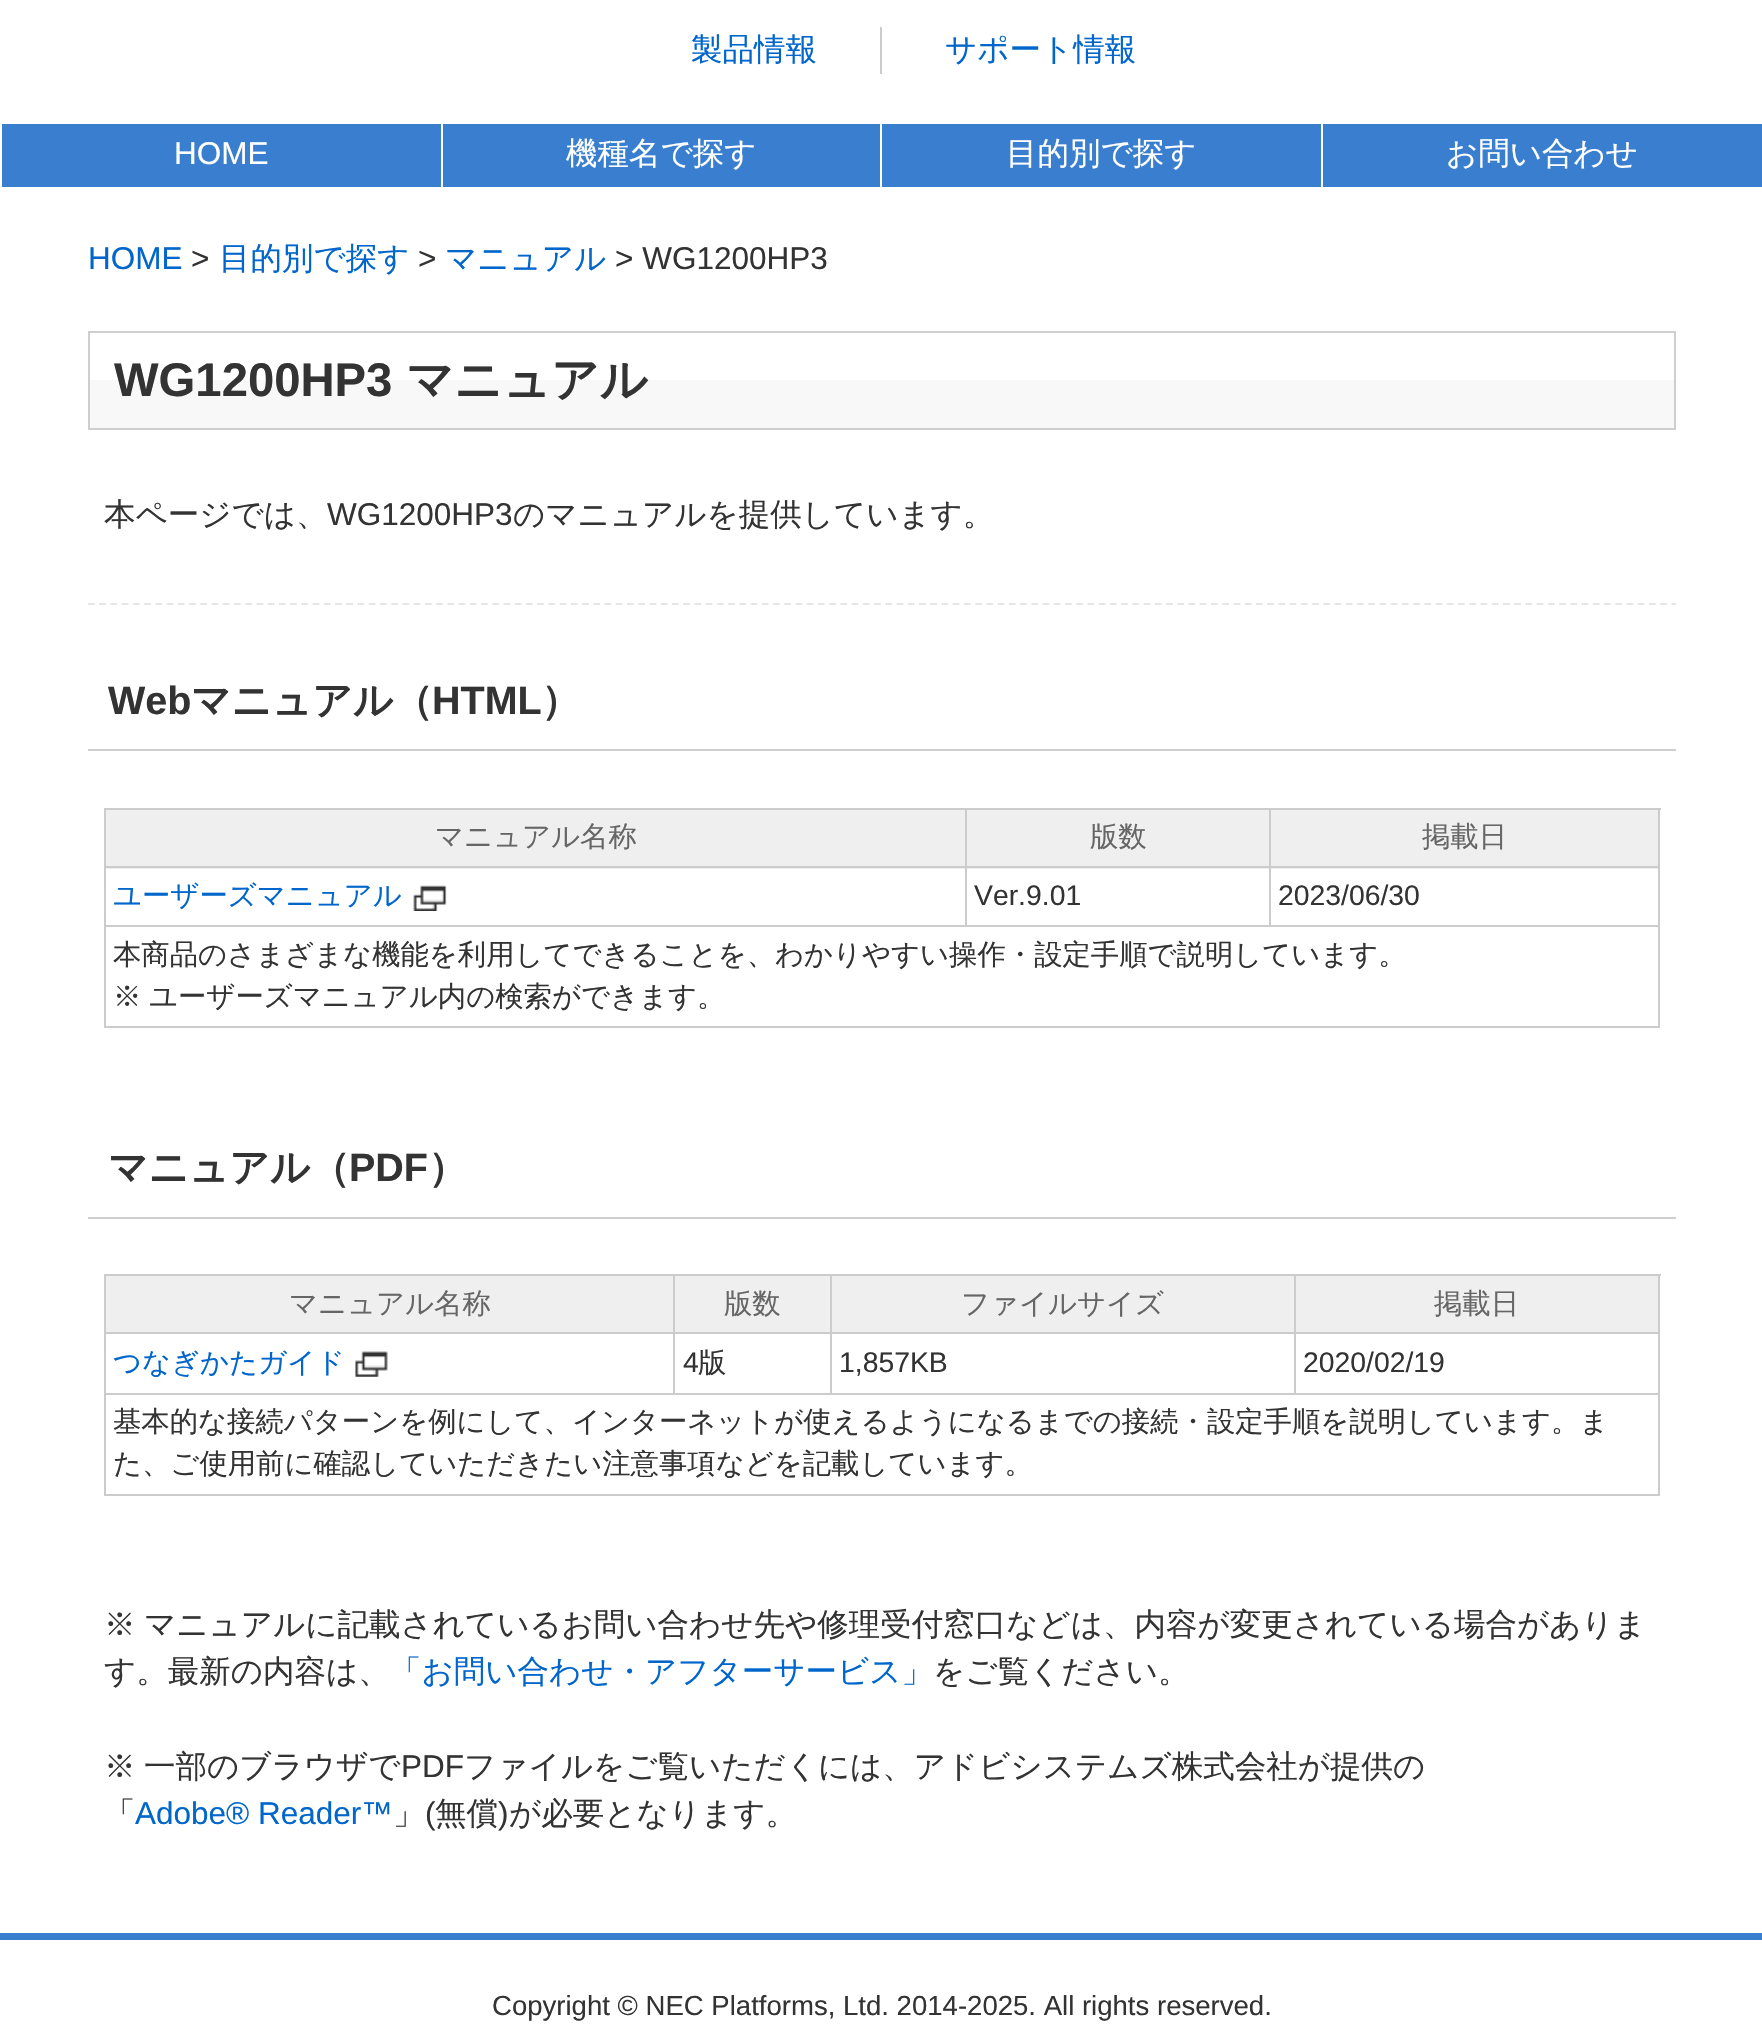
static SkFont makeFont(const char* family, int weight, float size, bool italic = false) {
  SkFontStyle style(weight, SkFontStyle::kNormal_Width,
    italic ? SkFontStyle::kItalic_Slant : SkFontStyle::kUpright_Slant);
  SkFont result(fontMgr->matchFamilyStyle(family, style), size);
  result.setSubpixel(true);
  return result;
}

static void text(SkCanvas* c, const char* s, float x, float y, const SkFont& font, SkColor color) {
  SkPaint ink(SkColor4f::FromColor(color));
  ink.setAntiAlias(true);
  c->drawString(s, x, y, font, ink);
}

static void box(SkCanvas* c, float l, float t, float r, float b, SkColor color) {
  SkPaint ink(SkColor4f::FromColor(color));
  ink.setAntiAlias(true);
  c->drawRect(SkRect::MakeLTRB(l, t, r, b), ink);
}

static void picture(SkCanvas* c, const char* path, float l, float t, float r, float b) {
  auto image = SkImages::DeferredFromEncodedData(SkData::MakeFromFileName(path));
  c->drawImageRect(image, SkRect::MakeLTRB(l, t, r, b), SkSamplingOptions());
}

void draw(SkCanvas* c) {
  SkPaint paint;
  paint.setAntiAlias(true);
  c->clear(0xffffffff);
  box(c, 880, 27, 882, 74, 0xffcccccc);
  SkFont face1 = makeFont("WenQuanYi Zen Hei", 500, 31.5f);
  text(c, "製品情報", 691, 60, face1, 0xff0066cc);
  text(c, "サポート情報", 945, 60, face1, 0xff0066cc);
  box(c, 2, 124, 441, 187, 0xff397ecf);
  SkFont face2 = makeFont("Liberation Sans", 400, 31.5f);
  text(c, "HOME", 174, 164, face2, 0xffffffff);
  box(c, 443, 124, 880, 187, 0xff397ecf);
  text(c, "機種名で探す", 566, 164, face1, 0xffffffff);
  box(c, 882, 124, 1321, 187, 0xff397ecf);
  text(c, "目的別で探す", 1006, 164, face1, 0xffffffff);
  box(c, 1323, 124, 1762, 187, 0xff397ecf);
  text(c, "お問い合わせ", 1446, 164, face1, 0xffffffff);
  text(c, "HOME", 88, 269, face2, 0xff0066cc);
  text(c, ">", 191, 269, face2, 0xff333333);
  text(c, "目的別で探す", 219, 269, face1, 0xff0066cc);
  text(c, ">", 418, 269, face2, 0xff333333);
  text(c, "マニュアル", 445, 269, face1, 0xff0066cc);
  text(c, "> WG1200HP3", 615, 269, face2, 0xff333333);
  box(c, 90, 380, 1674, 428, 0xfff8f8f8);
  paint.setStyle(SkPaint::kStroke_Style);
  paint.setStrokeWidth(2);
  paint.setColor(0xffcecece);
  c->drawRect(SkRect::MakeLTRB(89, 332, 1675, 429), paint);
  SkFont face3 = makeFont("Liberation Sans", 700, 47.25f);
  text(c, "WG1200HP3", 114, 396, face3, 0xff333333);
  SkFont face4 = makeFont("WenQuanYi Zen Hei", 700, 47.25f);
  text(c, "マニュアル", 406, 396, face4, 0xff333333);
  paint.setStrokeWidth(2.2f);
  paint.setColor(0xffe6e6e6);
  paint.setPathEffect(SkDashPathEffect::Make({{6.75f, 4.48f}}, 0));
  c->drawPath(SkPathBuilder().moveTo(88, 604).lineTo(1676, 604).detach(), paint);
  paint.setPathEffect(nullptr);
  text(c, "本ページでは、", 104, 525, face1, 0xff333333);
  text(c, "WG1200HP3", 327, 525, face2, 0xff333333);
  text(c, "のマニュアルを提供しています。", 513, 525, face1, 0xff333333);
  box(c, 88, 749, 1676, 751, 0xffcecece);
  SkFont face5 = makeFont("Liberation Sans", 700, 39.5f);
  text(c, "Web", 108, 714, face5, 0xff333333);
  SkFont face6 = makeFont("WenQuanYi Zen Hei", 700, 39.5f);
  text(c, "マニュアル（", 191, 714, face6, 0xff333333);
  text(c, "HTML", 432, 714, face5, 0xff333333);
  text(c, "）", 541, 714, face6, 0xff333333);
  box(c, 104, 808, 1661, 810, 0xffcccccc);
  box(c, 1658, 808, 1660, 1028, 0xffcccccc);
  box(c, 106, 810, 965, 869, 0xffefefef);
  box(c, 104, 866, 965, 868, 0xffcccccc);
  box(c, 104, 810, 106, 869, 0xffcccccc);
  SkFont face7 = makeFont("WenQuanYi Zen Hei", 500, 28.35f);
  text(c, "マニュアル名称", 435, 846, face7, 0xff666666);
  box(c, 967, 810, 1269, 869, 0xffefefef);
  box(c, 965, 866, 1269, 868, 0xffcccccc);
  box(c, 965, 810, 967, 869, 0xffcccccc);
  text(c, "版数", 1090, 846, face7, 0xff666666);
  box(c, 1271, 810, 1658, 869, 0xffefefef);
  box(c, 1269, 866, 1658, 868, 0xffcccccc);
  box(c, 1269, 810, 1271, 869, 0xffcccccc);
  text(c, "掲載日", 1422, 846, face7, 0xff666666);
  box(c, 104, 925, 1658, 927, 0xffcccccc);
  box(c, 104, 869, 106, 927, 0xffcccccc);
  text(c, "ユーザーズマニュアル", 113, 905, face7, 0xff0066cc);
  picture(c, "img_01.png", 413, 885, 447, 911);
  box(c, 965, 869, 967, 927, 0xffcccccc);
  SkFont face8 = makeFont("Liberation Sans", 400, 28.35f);
  text(c, "Ver.9.01", 974, 905, face8, 0xff333333);
  box(c, 1269, 869, 1271, 927, 0xffcccccc);
  text(c, "2023/06/30", 1278, 905, face8, 0xff333333);
  box(c, 104, 1026, 1658, 1028, 0xffcccccc);
  box(c, 104, 927, 106, 1028, 0xffcccccc);
  text(c, "本商品のさまざまな機能を利用してできることを、わかりやすい操作・設定手順で説明しています。", 113, 964, face7, 0xff333333);
  text(c, "※", 113, 1006, face7, 0xff333333);
  text(c, "ユーザーズマニュアル内の検索ができます。", 149, 1006, face7, 0xff333333);
  box(c, 88, 1217, 1676, 1219, 0xffcecece);
  text(c, "マニュアル（", 108, 1181, face6, 0xff333333);
  text(c, "PDF", 349, 1181, face5, 0xff333333);
  text(c, "）", 428, 1181, face6, 0xff333333);
  box(c, 104, 1274, 1661, 1276, 0xffcccccc);
  box(c, 1658, 1274, 1660, 1496, 0xffcccccc);
  box(c, 106, 1276, 673, 1332, 0xffefefef);
  box(c, 104, 1332, 1658, 1334, 0xffcccccc);
  box(c, 104, 1276, 106, 1334, 0xffcccccc);
  text(c, "マニュアル名称", 289, 1313, face7, 0xff666666);
  box(c, 675, 1276, 830, 1332, 0xffefefef);
  box(c, 673, 1276, 675, 1334, 0xffcccccc);
  text(c, "版数", 724, 1313, face7, 0xff666666);
  box(c, 832, 1276, 1294, 1332, 0xffefefef);
  box(c, 830, 1276, 832, 1334, 0xffcccccc);
  text(c, "ファイルサイズ", 961, 1313, face7, 0xff666666);
  box(c, 1296, 1276, 1658, 1332, 0xffefefef);
  box(c, 1294, 1276, 1296, 1334, 0xffcccccc);
  text(c, "掲載日", 1434, 1313, face7, 0xff666666);
  box(c, 104, 1393, 1658, 1395, 0xffcccccc);
  box(c, 104, 1334, 106, 1395, 0xffcccccc);
  text(c, "つなぎかたガイド", 113, 1372, face7, 0xff0066cc);
  picture(c, "img_02.png", 355, 1351, 388, 1377);
  box(c, 673, 1334, 675, 1395, 0xffcccccc);
  text(c, "4", 683, 1372, face8, 0xff333333);
  text(c, "版", 698, 1372, face7, 0xff333333);
  box(c, 830, 1334, 832, 1395, 0xffcccccc);
  text(c, "1,857KB", 839, 1372, face8, 0xff333333);
  box(c, 1294, 1334, 1296, 1395, 0xffcccccc);
  text(c, "2020/02/19", 1303, 1372, face8, 0xff333333);
  box(c, 104, 1494, 1658, 1496, 0xffcccccc);
  box(c, 104, 1395, 106, 1496, 0xffcccccc);
  text(c, "基本的な接続パターンを例にして、インターネットが使えるようになるまでの接続・設定手順を説明しています。ま", 113, 1431, face7, 0xff333333);
  text(c, "た、ご使用前に確認していただきたい注意事項などを記載しています。", 113, 1473, face7, 0xff333333);
  text(c, "※", 104, 1635, face1, 0xff333333);
  text(c, "マニュアルに記載されているお問い合わせ先や修理受付窓口などは、内容が変更されている場合がありま", 144, 1635, face1, 0xff333333);
  text(c, "す。最新の内容は、", 104, 1682, face1, 0xff333333);
  text(c, "「お問い合わせ・アフターサービス」", 390, 1682, face1, 0xff0066cc);
  text(c, "をご覧ください。", 933, 1682, face1, 0xff333333);
  text(c, "※", 104, 1777, face1, 0xff333333);
  text(c, "一部のブラウザで", 144, 1777, face1, 0xff333333);
  text(c, "PDF", 401, 1777, face2, 0xff333333);
  text(c, "ファイルをご覧いただくには、アドビシステムズ株式会社が提供の", 464, 1777, face1, 0xff333333);
  text(c, "「", 104, 1824, face1, 0xff333333);
  text(c, "Adobe® Reader™", 135, 1824, face2, 0xff0066cc);
  text(c, "」", 393, 1824, face1, 0xff333333);
  text(c, "(", 425, 1824, face2, 0xff333333);
  text(c, "無償", 435, 1824, face1, 0xff333333);
  text(c, ")", 498, 1824, face2, 0xff333333);
  text(c, "が必要となります。", 509, 1824, face1, 0xff333333);
  box(c, 0, 1933, 1762, 1940, 0xff397ecf);
  SkFont face9 = makeFont("Liberation Sans", 400, 27.55f);
  text(c, "Copyright © NEC Platforms, Ltd. 2014-2025. All rights reserved.", 492, 2015, face9, 0xff333333);
}
